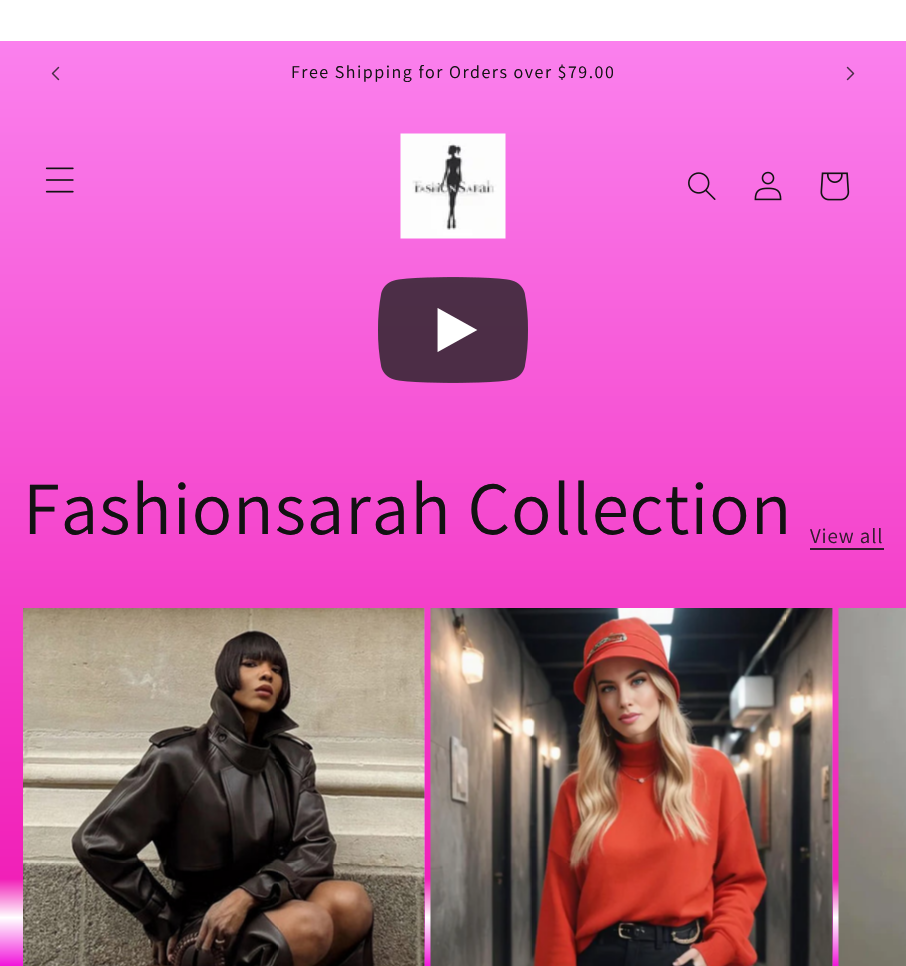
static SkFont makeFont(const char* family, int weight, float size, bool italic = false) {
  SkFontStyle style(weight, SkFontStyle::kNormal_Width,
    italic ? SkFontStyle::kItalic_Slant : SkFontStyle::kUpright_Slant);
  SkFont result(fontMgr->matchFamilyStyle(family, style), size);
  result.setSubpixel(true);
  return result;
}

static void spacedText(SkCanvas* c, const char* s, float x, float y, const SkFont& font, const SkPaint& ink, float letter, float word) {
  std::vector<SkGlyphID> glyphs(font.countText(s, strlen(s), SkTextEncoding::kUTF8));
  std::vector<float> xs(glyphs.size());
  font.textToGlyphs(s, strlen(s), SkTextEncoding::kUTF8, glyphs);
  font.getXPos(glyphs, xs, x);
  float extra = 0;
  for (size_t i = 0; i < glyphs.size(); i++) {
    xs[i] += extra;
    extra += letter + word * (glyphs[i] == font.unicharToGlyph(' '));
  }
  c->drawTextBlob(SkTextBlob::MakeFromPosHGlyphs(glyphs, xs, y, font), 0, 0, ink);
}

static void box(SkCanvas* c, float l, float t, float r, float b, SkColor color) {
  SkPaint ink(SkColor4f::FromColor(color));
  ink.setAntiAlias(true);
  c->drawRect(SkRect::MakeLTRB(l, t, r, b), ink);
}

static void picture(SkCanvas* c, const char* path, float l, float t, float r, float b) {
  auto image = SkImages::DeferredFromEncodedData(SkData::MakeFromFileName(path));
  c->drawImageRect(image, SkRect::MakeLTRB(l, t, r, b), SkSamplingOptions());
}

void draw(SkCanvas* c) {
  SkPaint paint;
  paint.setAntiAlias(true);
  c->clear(0xffffffff);
  {
    const SkColor colors[] = {0xfffb85f0, 0xfff120b8, 0xffffffff, 0xfff115da};
    const float stops[] = {0, 0.91f, 0.95f, 1};
    const SkPoint ends[] = {{453, 0}, {453, 966}};
    paint.setShader(SkGradientShader::MakeLinear(ends, colors, stops, 4, SkTileMode::kClamp));
    paint.setAlpha(255);
  }
  c->drawRect(SkRect::MakeLTRB(0, 41, 906, 107), paint);
  picture(c, "img_01.png", 51, 66, 60, 81);
  SkFont face1 = makeFont("Assistant", 400, 18);
  paint.setShader(nullptr);
  paint.setColor(0xff121212);
  spacedText(c, "Free Shipping for Orders over $79.00", 291, 78, face1, paint, 1.5f, 0);
  picture(c, "img_02.png", 846, 66, 855, 81);
  {
    const SkColor colors[] = {0xfffb85f0, 0xfff120b8, 0xffffffff, 0xfff115da};
    const float stops[] = {0, 0.91f, 0.95f, 1};
    const SkPoint ends[] = {{453, 0}, {453, 966}};
    paint.setShader(SkGradientShader::MakeLinear(ends, colors, stops, 4, SkTileMode::kClamp));
    paint.setAlpha(255);
  }
  c->drawRect(SkRect::MakeLTRB(0, 107, 906, 264), paint);
  picture(c, "img_03.png", 45, 167, 74, 193);
  picture(c, "img_04.png", 400, 133, 506, 239);
  picture(c, "img_05.png", 688, 172, 716, 200);
  picture(c, "img_06.png", 754, 171, 782, 201);
  picture(c, "img_07.png", 820, 172, 850, 201);
  c->drawRect(SkRect::MakeLTRB(0, 264, 906, 408), paint);
  picture(c, "img_08.png", 378, 277, 528, 383);
  c->drawRect(SkRect::MakeLTRB(0, 408, 906, 966), paint);
  SkFont face2 = makeFont("Assistant", 400, 75);
  paint.setShader(nullptr);
  paint.setColor(0xff121212);
  spacedText(c, "Fashionsarah Collection", 23, 534, face2, paint, 0.9f, 0);
  SkFont face3 = makeFont("Assistant", 400, 21);
  paint.setColor(0xff341a2e);
  spacedText(c, "View all", 810, 543, face3, paint, 0.9f, 0);
  box(c, 810, 548, 884, 550, 0xff341a2e);
  box(c, 424, 608, 425, 966, 0xfffc44e9);
  picture(c, "img_09.png", 23, 608, 425, 966);
  box(c, 832, 608, 833, 966, 0xfffc44e9);
  picture(c, "img_10.png", 430, 608, 833, 966);
  picture(c, "img_11.png", 838, 608, 906, 966);
}
